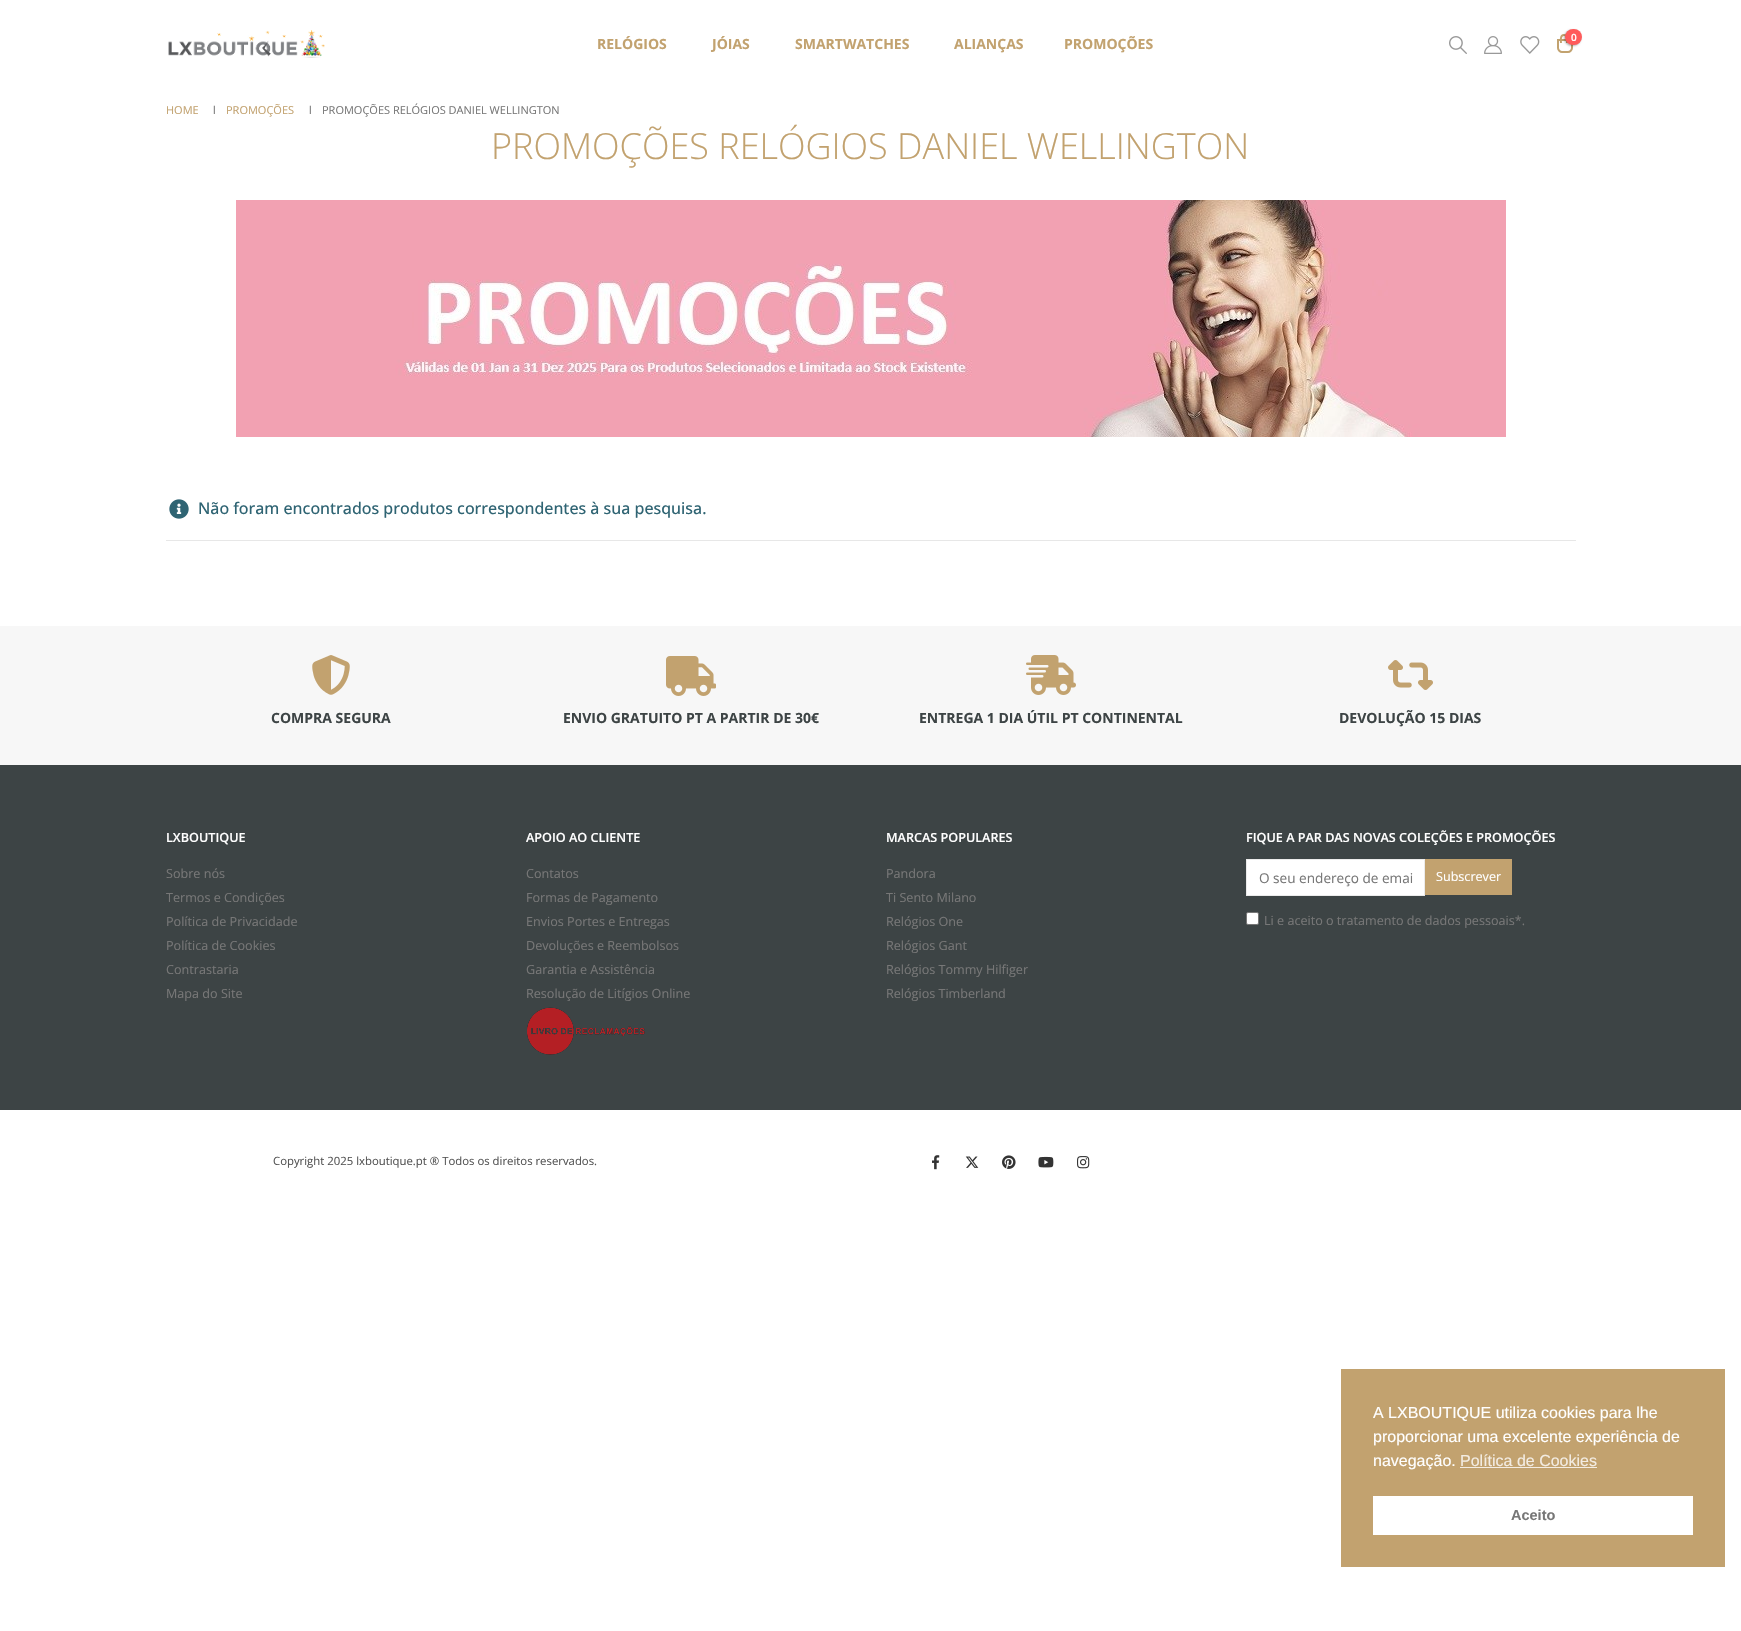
static SkFont makeFont(const char* family, int weight, float size, bool italic = false) {
  SkFontStyle style(weight, SkFontStyle::kNormal_Width,
    italic ? SkFontStyle::kItalic_Slant : SkFontStyle::kUpright_Slant);
  SkFont result(fontMgr->matchFamilyStyle(family, style), size);
  result.setSubpixel(true);
  return result;
}

static void text(SkCanvas* c, const char* s, float x, float y, const SkFont& font, SkColor color) {
  SkPaint ink(SkColor4f::FromColor(color));
  ink.setAntiAlias(true);
  c->drawString(s, x, y, font, ink);
}

static void box(SkCanvas* c, float l, float t, float r, float b, SkColor color) {
  SkPaint ink(SkColor4f::FromColor(color));
  ink.setAntiAlias(true);
  c->drawRect(SkRect::MakeLTRB(l, t, r, b), ink);
}

static void roundBox(SkCanvas* c, float l, float t, float r, float b, float radius, SkColor color) {
  SkPaint ink(SkColor4f::FromColor(color));
  ink.setAntiAlias(true);
  c->drawRoundRect(SkRect::MakeLTRB(l, t, r, b), radius, radius, ink);
}

static void picture(SkCanvas* c, const char* path, float l, float t, float r, float b) {
  auto image = SkImages::DeferredFromEncodedData(SkData::MakeFromFileName(path));
  c->drawImageRect(image, SkRect::MakeLTRB(l, t, r, b), SkSamplingOptions());
}

void draw(SkCanvas* c) {
  SkPaint paint;
  paint.setAntiAlias(true);
  c->clear(0xffffffff);
  picture(c, "img_01.png", 168, 30, 325, 58);
  SkFont face1 = makeFont("Open Sans", 700, 14);
  text(c, "RELÓGIOS", 597, 49, face1, 0xffc2a26f);
  text(c, "JÓIAS", 712, 49, face1, 0xffc2a26f);
  text(c, "SMARTWATCHES", 795, 49, face1, 0xffc2a26f);
  text(c, "ALIANÇAS", 954, 49, face1, 0xffc2a26f);
  text(c, "PROMOÇÕES", 1064, 49, face1, 0xffc2a26f);
  picture(c, "img_02.png", 1449, 36, 1467, 54);
  picture(c, "img_03.png", 1484, 36, 1502, 54);
  picture(c, "img_04.png", 1520, 36, 1540, 54);
  paint.setStyle(SkPaint::kStroke_Style);
  paint.setStrokeWidth(2);
  paint.setColor(0xffc2a26f);
  c->drawPath(SkPathBuilder().moveTo(1558, 40).lineTo(1572, 40).lineTo(1572, 48).cubicTo(1572, 50, 1570, 52, 1568, 52).lineTo(1562, 52).cubicTo(1560, 52, 1558, 50, 1558, 48).close().detach(), paint);
  paint.setStyle(SkPaint::kFill_Style);
  c->drawPath(SkPathBuilder(SkPathFillType::kEvenOdd).moveTo(1564, 34).cubicTo(1569, 34, 1568, 40, 1568, 43).lineTo(1560, 43).cubicTo(1560, 40, 1559, 34, 1564, 34).close().moveTo(1564, 36).cubicTo(1567, 36, 1566, 41, 1566, 43).lineTo(1562, 43).cubicTo(1562, 41, 1561, 36, 1564, 36).close().detach(), paint);
  paint.setColor(0x4d000000);
  paint.setMaskFilter(SkMaskFilter::MakeBlur(kNormal_SkBlurStyle, 1));
  c->drawRoundRect(SkRect::MakeLTRB(1564, 30, 1581, 46), 8, 8, paint);
  paint.setMaskFilter(nullptr);
  roundBox(c, 1565, 29, 1582, 45, 8, 0xffff5b5b);
  SkFont face2 = makeFont("Open Sans", 600, 10);
  text(c, "0", 1571, 41, face2, 0xffffffff);
  SkFont face3 = makeFont("Open Sans", 400, 11);
  text(c, "HOME", 166, 114, face3, 0xffc2a26f);
  SkFont face4 = makeFont("Liberation Serif", 700, 12);
  text(c, "ǀ", 213, 114, face4, 0xff777777);
  text(c, "PROMOÇÕES", 226, 114, face3, 0xffc2a26f);
  text(c, "ǀ", 309, 114, face4, 0xff777777);
  text(c, "PROMOÇÕES RELÓGIOS DANIEL WELLINGTON", 322, 114, face3, 0xff777777);
  SkFont face5 = makeFont("Open Sans", 300, 36);
  text(c, "PROMOÇÕES RELÓGIOS DANIEL WELLINGTON", 491, 159, face5, 0xffc2a26f);
  picture(c, "img_05.png", 236, 200, 1506, 437);
  picture(c, "img_06.png", 169, 499, 189, 519);
  SkFont face6 = makeFont("Open Sans", 500, 16);
  text(c, "Não foram encontrados produtos correspondentes à sua pesquisa.", 198, 514, face6, 0xff2f6473);
  box(c, 166, 540, 1576, 541, 0xffe7e7e7);
  box(c, 0, 626, 1741, 765, 0xfff7f7f7);
  picture(c, "img_07.png", 312, 655, 350, 695);
  text(c, "COMPRA SEGURA", 271, 723, face1, 0xff3d4445);
  picture(c, "img_08.png", 666, 656, 716, 696);
  text(c, "ENVIO GRATUITO PT A PARTIR DE 30€", 563, 723, face1, 0xff3d4445);
  picture(c, "img_09.png", 1026, 655, 1076, 695);
  text(c, "ENTREGA 1 DIA ÚTIL PT CONTINENTAL", 919, 723, face1, 0xff3d4445);
  picture(c, "img_10.png", 1388, 660, 1433, 690);
  text(c, "DEVOLUÇÃO 15 DIAS", 1339, 723, face1, 0xff3d4445);
  box(c, 0, 765, 1741, 1110, 0xff3d4445);
  SkFont face7 = makeFont("Open Sans", 600, 12.6f);
  text(c, "LXBOUTIQUE", 166, 842, face7, 0xffffffff);
  SkFont face8 = makeFont("Open Sans", 400, 12.6f);
  text(c, "Sobre nós", 166, 878, face8, 0xff777777);
  text(c, "Termos e Condições", 166, 902, face8, 0xff777777);
  text(c, "Política de Privacidade", 166, 926, face8, 0xff777777);
  text(c, "Política de Cookies", 166, 950, face8, 0xff777777);
  text(c, "Contrastaria", 166, 974, face8, 0xff777777);
  text(c, "Mapa do Site", 166, 998, face8, 0xff777777);
  text(c, "APOIO AO CLIENTE", 526, 842, face7, 0xffffffff);
  text(c, "Contatos", 526, 878, face8, 0xff777777);
  text(c, "Formas de Pagamento", 526, 902, face8, 0xff777777);
  text(c, "Envios Portes e Entregas", 526, 926, face8, 0xff777777);
  text(c, "Devoluções e Reembolsos", 526, 950, face8, 0xff777777);
  text(c, "Garantia e Assistência", 526, 974, face8, 0xff777777);
  text(c, "Resolução de Litígios Online", 526, 998, face8, 0xff777777);
  picture(c, "img_11.png", 527, 1007, 645, 1055);
  text(c, "MARCAS POPULARES", 886, 842, face7, 0xffffffff);
  text(c, "Pandora", 886, 878, face8, 0xff777777);
  text(c, "Ti Sento Milano", 886, 902, face8, 0xff777777);
  text(c, "Relógios One", 886, 926, face8, 0xff777777);
  text(c, "Relógios Gant", 886, 950, face8, 0xff777777);
  text(c, "Relógios Tommy Hilfiger", 886, 974, face8, 0xff777777);
  text(c, "Relógios Timberland", 886, 998, face8, 0xff777777);
  text(c, "FIQUE A PAR DAS NOVAS COLEÇÕES E PROMOÇÕES", 1246, 842, face7, 0xffffffff);
  paint.setColor(0xffffffff);
  c->drawRect(SkRect::MakeLTRB(1246.5f, 859.5f, 1424.5f, 895.5f), paint);
  paint.setStyle(SkPaint::kStroke_Style);
  paint.setStrokeWidth(1);
  paint.setColor(0xffebebeb);
  c->drawRect(SkRect::MakeLTRB(1246.5f, 859.5f, 1424.5f, 895.5f), paint);
  SkFont face9 = makeFont("Open Sans", 400, 13.6f);
  text(c, "O seu endereço de emai", 1259, 883, face9, 0xff777777);
  box(c, 1425, 859, 1512, 895, 0xffc2a26f);
  text(c, "Subscrever", 1436, 881, face8, 0xffffffff);
  paint.setStyle(SkPaint::kFill_Style);
  paint.setColor(0xffffffff);
  c->drawRoundRect(SkRect::MakeLTRB(1246.5f, 912.5f, 1258.5f, 924.5f), 1.5f, 1.5f, paint);
  paint.setStyle(SkPaint::kStroke_Style);
  paint.setColor(0xff767676);
  c->drawRoundRect(SkRect::MakeLTRB(1246.5f, 912.5f, 1258.5f, 924.5f), 1.5f, 1.5f, paint);
  text(c, "Li e aceito o tratamento de dados pessoais*.", 1264, 925, face8, 0xff777777);
  SkFont face10 = makeFont("Open Sans", 400, 11.35f);
  text(c, "Copyright 2025 lxboutique.pt ® Todos os direitos reservados.", 273, 1165, face10, 0xff555555);
  picture(c, "img_12.png", 932, 1155, 940, 1170);
  picture(c, "img_13.png", 965, 1156, 979, 1168);
  picture(c, "img_14.png", 1002, 1155, 1016, 1169);
  picture(c, "img_15.png", 1038, 1156, 1054, 1168);
  picture(c, "img_16.png", 1077, 1156, 1090, 1169);
  box(c, 1341, 1369, 1725, 1567, 0xffc2a26f);
  SkFont face11 = makeFont("Liberation Sans", 400, 16);
  text(c, "A LXBOUTIQUE utiliza cookies para lhe", 1373, 1418, face11, 0xffffffff);
  text(c, "proporcionar uma excelente experiência de", 1373, 1442, face11, 0xffffffff);
  text(c, "navegação.", 1373, 1466, face11, 0xffffffff);
  text(c, "Política de Cookies", 1460, 1466, face11, 0xfff3ece2);
  box(c, 1460, 1467, 1597, 1468, 0xfff3ece2);
  box(c, 1373, 1496, 1693, 1535, 0xffffffff);
  SkFont face12 = makeFont("Liberation Sans", 700, 14.5f);
  text(c, "Aceito", 1511, 1520, face12, 0xff777777);
}
